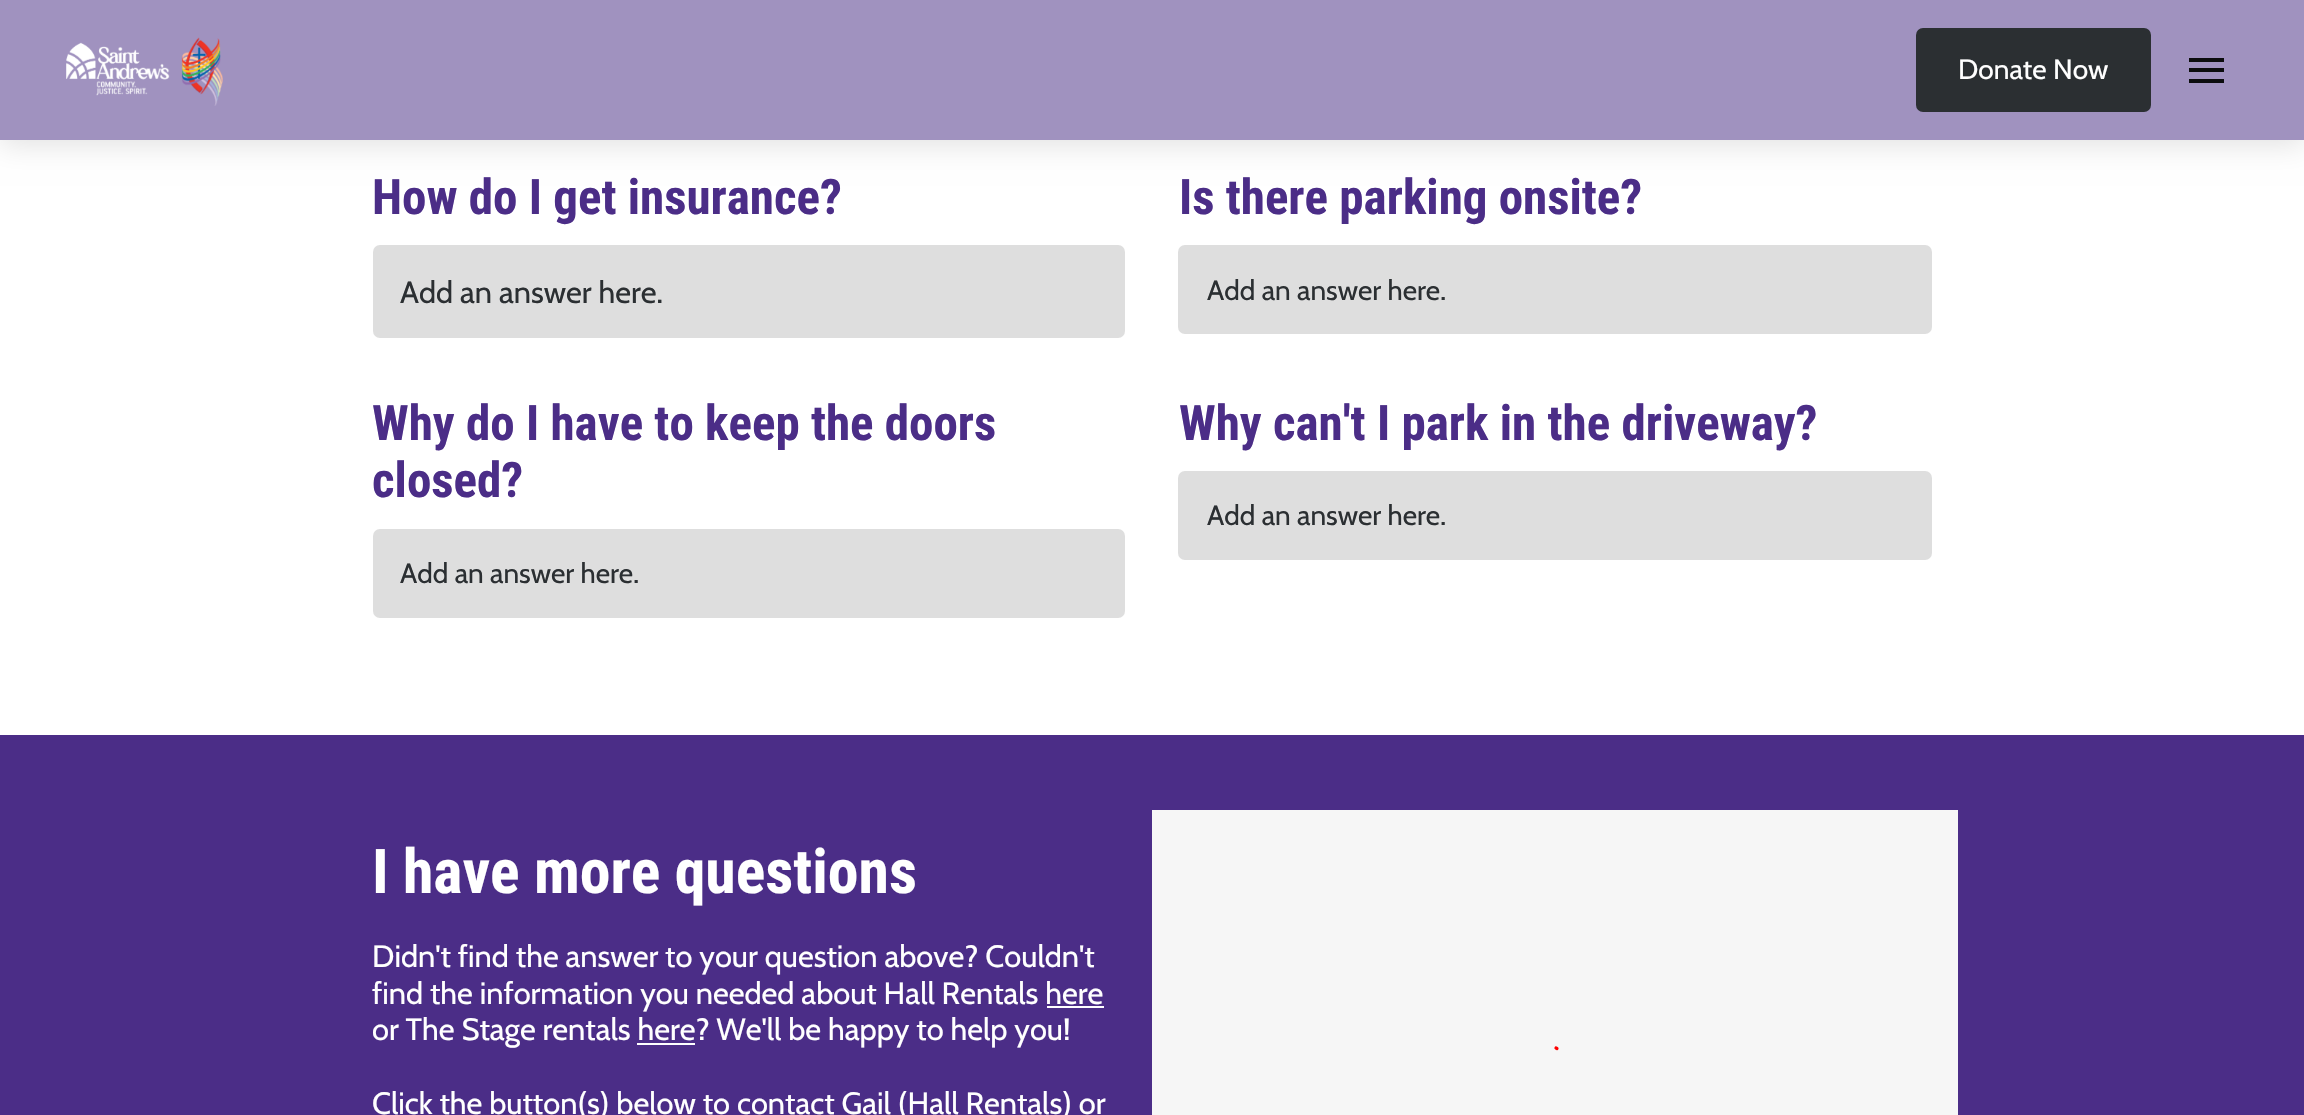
static SkFont makeFont(const char* family, int weight, float size, bool italic = false) {
  SkFontStyle style(weight, SkFontStyle::kNormal_Width,
    italic ? SkFontStyle::kItalic_Slant : SkFontStyle::kUpright_Slant);
  SkFont result(fontMgr->matchFamilyStyle(family, style), size);
  result.setSubpixel(true);
  return result;
}

static void text(SkCanvas* c, const char* s, float x, float y, const SkFont& font, SkColor color) {
  SkPaint ink(SkColor4f::FromColor(color));
  ink.setAntiAlias(true);
  c->drawString(s, x, y, font, ink);
}

static void box(SkCanvas* c, float l, float t, float r, float b, SkColor color) {
  SkPaint ink(SkColor4f::FromColor(color));
  ink.setAntiAlias(true);
  c->drawRect(SkRect::MakeLTRB(l, t, r, b), ink);
}

static void roundBox(SkCanvas* c, float l, float t, float r, float b, float radius, SkColor color) {
  SkPaint ink(SkColor4f::FromColor(color));
  ink.setAntiAlias(true);
  c->drawRoundRect(SkRect::MakeLTRB(l, t, r, b), radius, radius, ink);
}

static void picture(SkCanvas* c, const char* path, float l, float t, float r, float b) {
  auto image = SkImages::DeferredFromEncodedData(SkData::MakeFromFileName(path));
  c->drawImageRect(image, SkRect::MakeLTRB(l, t, r, b), SkSamplingOptions());
}

void draw(SkCanvas* c) {
  SkPaint paint;
  paint.setAntiAlias(true);
  c->clear(0xffffffff);
  paint.setColor(0x1f000000);
  paint.setMaskFilter(SkMaskFilter::MakeBlur(kNormal_SkBlurStyle, 14));
  c->drawRect(SkRect::MakeLTRB(0, 4, 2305, 144), paint);
  paint.setMaskFilter(nullptr);
  box(c, 0, 0, 2304, 140, 0xffa092bf);
  picture(c, "img_01.png", 66, 37, 223, 106);
  roundBox(c, 1916, 28, 2151, 112, 7, 0xff2b2f32);
  SkFont face1 = makeFont("Cabin", 400, 28);
  text(c, "Donate Now", 1958, 79, face1, 0xffffffff);
  box(c, 2189, 58, 2224, 62, 0xff0c0d0e);
  box(c, 2189, 68, 2224, 72, 0xff0c0d0e);
  box(c, 2189, 79, 2224, 83, 0xff0c0d0e);
  SkFont face2 = makeFont("Roboto Condensed", 700, 49);
  text(c, "How do I get insurance?", 372, 214, face2, 0xff4b2d87);
  roundBox(c, 373, 245, 1125, 338, 7, 0xffdedede);
  SkFont face3 = makeFont("Cabin", 400, 30.8f);
  text(c, "Add an answer here.", 400, 303, face3, 0xff2b2f32);
  text(c, "Is there parking onsite?", 1179, 214, face2, 0xff4b2d87);
  roundBox(c, 1178, 245, 1932, 334, 7, 0xffdedede);
  text(c, "Add an answer here.", 1207, 300, face1, 0xff2b2f32);
  text(c, "Why do I have to keep the doors", 372, 440, face2, 0xff4b2d87);
  text(c, "closed?", 372, 497, face2, 0xff4b2d87);
  roundBox(c, 373, 529, 1125, 618, 7, 0xffdedede);
  text(c, "Add an answer here.", 400, 583, face1, 0xff2b2f32);
  text(c, "Why can't I park in the driveway?", 1179, 440, face2, 0xff4b2d87);
  roundBox(c, 1178, 471, 1932, 560, 7, 0xffdedede);
  text(c, "Add an answer here.", 1207, 525, face1, 0xff2b2f32);
  box(c, 0, 735, 2304, 1115, 0xff4b2d87);
  SkFont face4 = makeFont("Roboto Condensed", 700, 61.75f);
  text(c, "I have more questions", 372, 893, face4, 0xffffffff);
  text(c, "Didn't find the answer to your question above? Couldn't", 372, 967, face3, 0xffffffff);
  text(c, "find the information you needed about Hall Rentals here", 372, 1004, face3, 0xffffffff);
  box(c, 1047, 1006, 1104, 1008, 0xffffffff);
  text(c, "or The Stage rentals here? We'll be happy to help you!", 372, 1040, face3, 0xffffffff);
  box(c, 637, 1043, 695, 1045, 0xffffffff);
  text(c, "Click the button(s) below to contact Gail (Hall Rentals) or", 372, 1114, face3, 0xffffffff);
  box(c, 1152, 810, 1958, 1115, 0xfff6f6f6);
  paint.setStyle(SkPaint::kStroke_Style);
  paint.setStrokeWidth(3.2f);
  paint.setStrokeCap(SkPaint::kRound_Cap);
  paint.setColor(0xffff0000);
  c->drawPath(SkPathBuilder().moveTo(1556, 1048).lineTo(1557, 1048.5f).detach(), paint);
}
